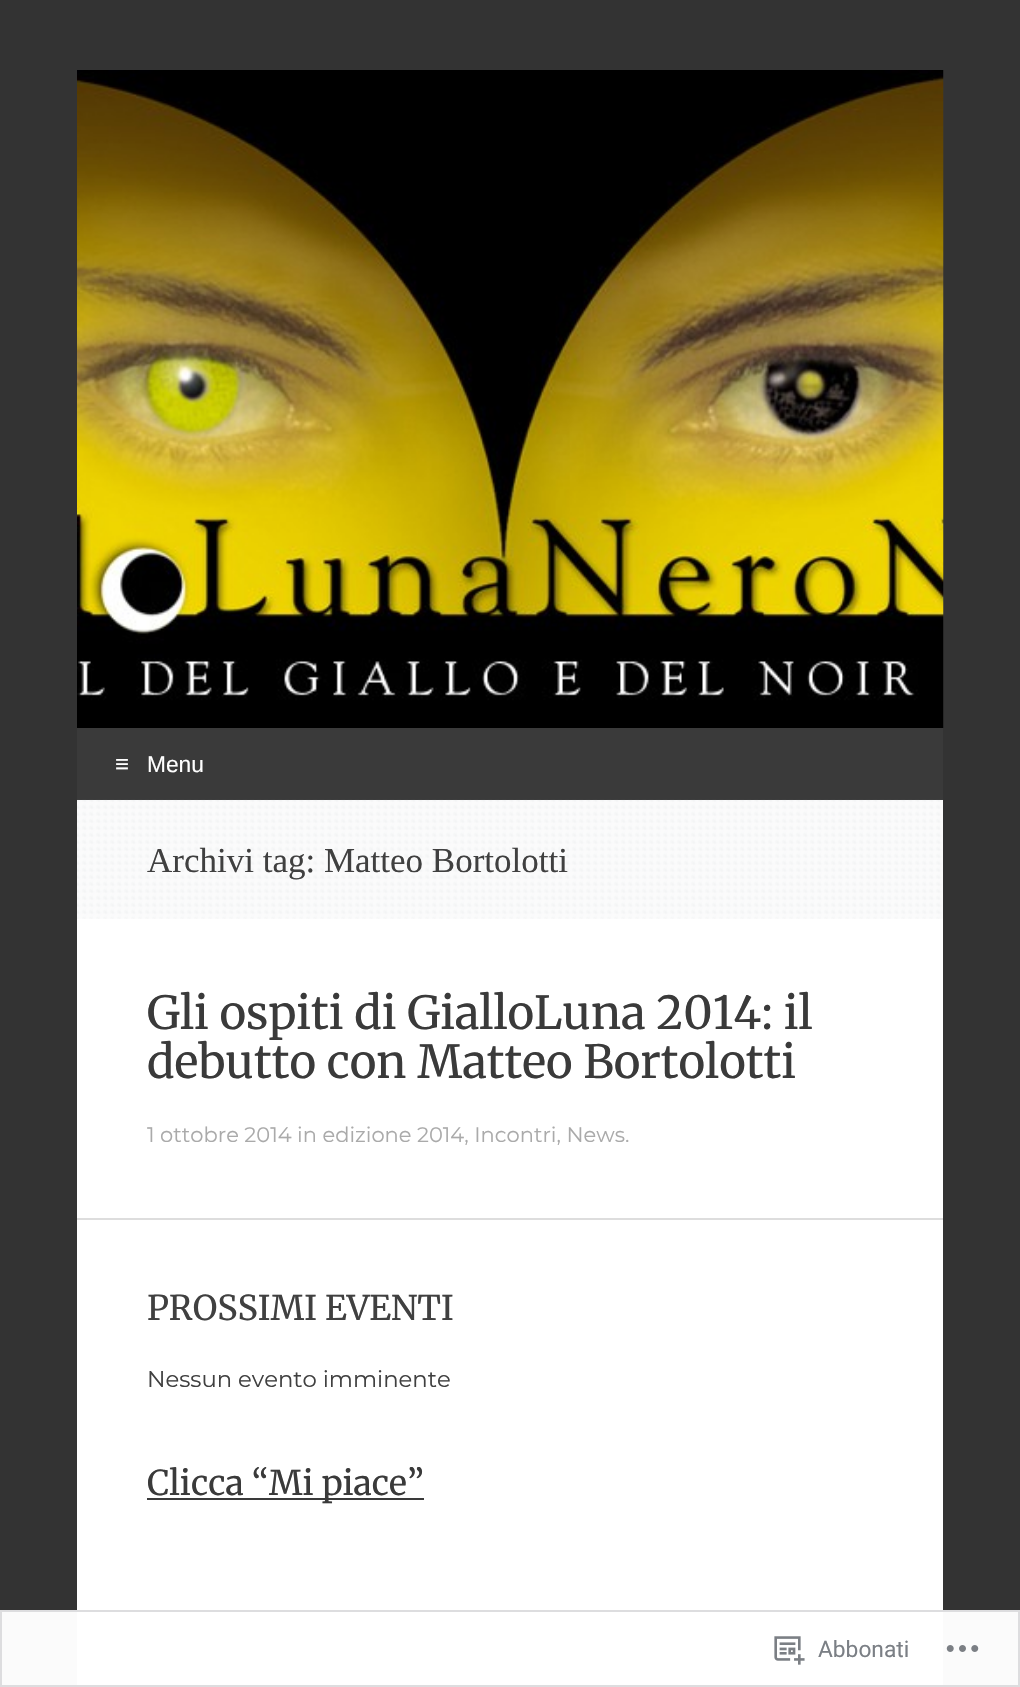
static SkFont makeFont(const char* family, int weight, float size, bool italic = false) {
  SkFontStyle style(weight, SkFontStyle::kNormal_Width,
    italic ? SkFontStyle::kItalic_Slant : SkFontStyle::kUpright_Slant);
  SkFont result(fontMgr->matchFamilyStyle(family, style), size);
  result.setSubpixel(true);
  return result;
}

static void text(SkCanvas* c, const char* s, float x, float y, const SkFont& font, SkColor color) {
  SkPaint ink(SkColor4f::FromColor(color));
  ink.setAntiAlias(true);
  c->drawString(s, x, y, font, ink);
}

static void box(SkCanvas* c, float l, float t, float r, float b, SkColor color) {
  SkPaint ink(SkColor4f::FromColor(color));
  ink.setAntiAlias(true);
  c->drawRect(SkRect::MakeLTRB(l, t, r, b), ink);
}

static void picture(SkCanvas* c, const char* path, float l, float t, float r, float b) {
  auto image = SkImages::DeferredFromEncodedData(SkData::MakeFromFileName(path));
  c->drawImageRect(image, SkRect::MakeLTRB(l, t, r, b), SkSamplingOptions());
}

void draw(SkCanvas* c) {
  SkPaint paint;
  paint.setAntiAlias(true);
  c->clear(0xff333333);
  box(c, 0, 1610, 1020, 1687, 0xfffbfbfb);
  box(c, 77, 800, 943, 1687, 0xffffffff);
  picture(c, "img_01.png", 77, 70, 944, 728);
  box(c, 77, 728, 943, 800, 0xff3a3a3a);
  SkFont face1 = makeFont("Liberation Sans", 400, 24);
  text(c, "≡", 115, 772, face1, 0xffffffff);
  SkFont face2 = makeFont("Liberation Sans", 400, 22.75f);
  text(c, "Menu", 147, 772, face2, 0xffffffff);
  picture(c, "img_02.png", 77, 799, 943, 919);
  SkFont face3 = makeFont("Liberation Serif", 400, 35);
  text(c, "Archivi tag: Matteo Bortolotti", 147, 872, face3, 0xff404040);
  box(c, 77, 1218, 943, 1220, 0xffdddddd);
  SkFont face4 = makeFont("Merriweather", 300, 45.5f);
  text(c, "Gli ospiti di GialloLuna 2014: il", 147, 1029, face4, 0xff3a3a3a);
  text(c, "debutto con Matteo Bortolotti", 147, 1078, face4, 0xff3a3a3a);
  SkFont face5 = makeFont("Montserrat", 400, 21);
  text(c, "1 ottobre 2014 in edizione 2014, Incontri, News.", 147, 1142, face5, 0xffaaaaaa);
  SkFont face6 = makeFont("Merriweather", 300, 34.1f);
  text(c, "PROSSIMI EVENTI", 147, 1320, face6, 0xff404040);
  SkFont face7 = makeFont("Montserrat", 400, 22.75f);
  text(c, "Nessun evento imminente", 147, 1387, face7, 0xff404040);
  box(c, 147, 1498, 424, 1500, 0xff3a3a3a);
  c->save();
  c->clipRect(SkRect::MakeLTRB(147, 1467, 873, 1572));
  text(c, "Clicca “Mi piace”", 147, 1495, face6, 0xff3a3a3a);
  c->restore();
  paint.setStyle(SkPaint::kStroke_Style);
  paint.setStrokeWidth(2);
  paint.setColor(0xfadcdcde);
  c->drawRect(SkRect::MakeLTRB(1, 1611, 1019, 1686), paint);
  picture(c, "img_03.png", 774, 1636, 805, 1665);
  SkFont face8 = makeFont("Roboto", 400, 22.75f);
  text(c, "Abbonati", 818, 1657, face8, 0xff7b7f85);
  picture(c, "img_04.png", 946, 1645, 979, 1652);
}
